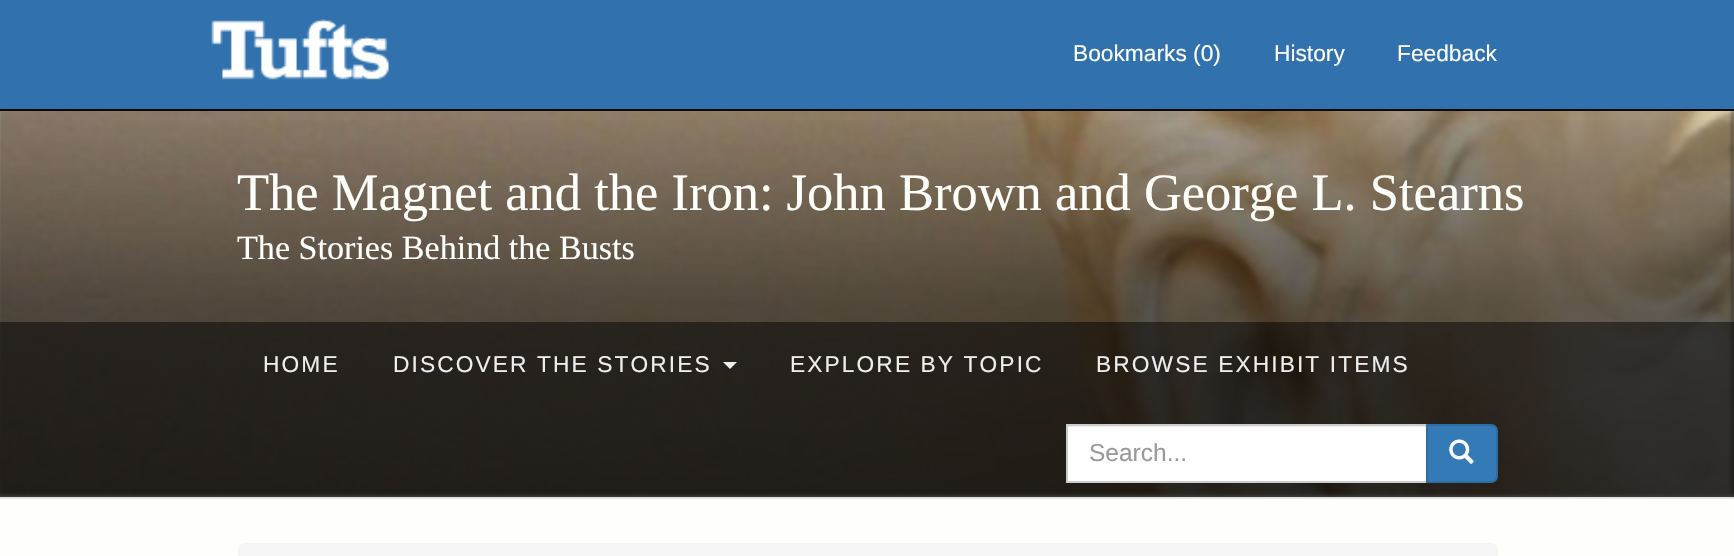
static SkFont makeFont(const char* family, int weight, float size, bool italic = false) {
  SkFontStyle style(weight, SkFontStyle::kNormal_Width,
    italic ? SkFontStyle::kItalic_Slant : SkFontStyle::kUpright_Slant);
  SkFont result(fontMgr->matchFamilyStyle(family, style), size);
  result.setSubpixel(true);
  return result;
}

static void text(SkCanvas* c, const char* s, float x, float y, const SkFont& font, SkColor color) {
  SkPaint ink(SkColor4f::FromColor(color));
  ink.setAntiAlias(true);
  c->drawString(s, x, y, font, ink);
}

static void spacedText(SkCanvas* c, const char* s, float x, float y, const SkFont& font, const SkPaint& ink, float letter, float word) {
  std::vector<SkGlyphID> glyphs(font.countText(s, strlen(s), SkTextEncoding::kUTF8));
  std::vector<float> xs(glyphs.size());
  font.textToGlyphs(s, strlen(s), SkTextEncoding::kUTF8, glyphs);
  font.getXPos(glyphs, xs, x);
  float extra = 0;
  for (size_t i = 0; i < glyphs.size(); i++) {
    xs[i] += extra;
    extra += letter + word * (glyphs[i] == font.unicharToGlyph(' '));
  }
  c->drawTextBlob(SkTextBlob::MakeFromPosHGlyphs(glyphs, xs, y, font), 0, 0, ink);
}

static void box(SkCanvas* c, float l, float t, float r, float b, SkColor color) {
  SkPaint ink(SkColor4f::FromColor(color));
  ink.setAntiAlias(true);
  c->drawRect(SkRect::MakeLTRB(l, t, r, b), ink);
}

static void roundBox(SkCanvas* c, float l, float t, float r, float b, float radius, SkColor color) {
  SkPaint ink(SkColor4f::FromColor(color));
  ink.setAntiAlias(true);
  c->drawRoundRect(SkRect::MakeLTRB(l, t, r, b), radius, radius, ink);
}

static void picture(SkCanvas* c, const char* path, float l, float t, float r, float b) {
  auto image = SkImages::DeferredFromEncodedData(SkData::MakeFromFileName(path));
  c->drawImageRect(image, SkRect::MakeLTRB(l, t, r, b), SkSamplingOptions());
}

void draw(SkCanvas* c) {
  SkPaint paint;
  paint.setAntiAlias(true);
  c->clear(0xfffefefa);
  box(c, 0, 111, 1734, 497, 0xfff5f5f5);
  box(c, 0, 497, 1734, 499, 0xffe7e7e7);
  picture(c, "img_02.png", 0, 111, 1734, 498);
  paint.setColor(0xff000000);
  paint.setMaskFilter(SkMaskFilter::MakeBlur(kNormal_SkBlurStyle, 2));
  c->drawRect(SkRect::MakeLTRB(1733, 109, 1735, 495), paint);
  paint.setMaskFilter(nullptr);
  box(c, 0, 0, 1734, 109, 0xff3172ae);
  box(c, 0, 109, 1734, 111, 0xff090909);
  picture(c, "img_01.png", 211, 19, 389, 80);
  SkFont face1 = makeFont("Liberation Sans", 400, 22.75f);
  text(c, "Bookmarks (0)", 1073, 61, face1, 0xfffefefa);
  text(c, "History", 1274, 61, face1, 0xfffefefa);
  text(c, "Feedback", 1397, 61, face1, 0xfffefefa);
  {
    const SkColor colors[] = {0x00000000, 0x66000000, 0x80000000};
    const float stops[] = {0, 0.5f, 1};
    const SkPoint ends[] = {{867, 110}, {867, 497}};
    paint.setShader(SkGradientShader::MakeLinear(ends, colors, stops, 3, SkTileMode::kClamp));
    paint.setAlpha(255);
  }
  c->drawRect(SkRect::MakeLTRB(0, 120, 1734, 497), paint);
  SkFont face2 = makeFont("Liberation Serif", 400, 52.5f);
  text(c, "The Magnet and the Iron: John Brown and George L. Stearns", 237, 210, face2, 0xfffefefa);
  SkFont face3 = makeFont("Liberation Serif", 400, 34.1f);
  text(c, "The Stories Behind the Busts", 237, 259, face3, 0xfffefefa);
  box(c, 0, 322, 1734, 497, 0x80000000);
  paint.setShader(nullptr);
  paint.setColor(0xffeeeeee);
  spacedText(c, "HOME", 263, 372, face1, paint, 2.1f, 0);
  spacedText(c, "DISCOVER THE STORIES", 393, 372, face1, paint, 2.1f, 0);
  c->drawPath(SkPathBuilder().moveTo(723, 362).lineTo(737, 362).lineTo(730, 369).close().detach(), paint);
  spacedText(c, "EXPLORE BY TOPIC", 790, 372, face1, paint, 2.1f, 0);
  spacedText(c, "BROWSE EXHIBIT ITEMS", 1096, 372, face1, paint, 2.1f, 0);
  box(c, 1068, 427, 1426, 481, 0xffffffff);
  box(c, 1068, 426, 1426, 427, 0xffececec);
  paint.setStyle(SkPaint::kStroke_Style);
  paint.setStrokeWidth(2);
  paint.setColor(0xffcccccc);
  c->drawRect(SkRect::MakeLTRB(1067, 425, 1427, 482), paint);
  SkFont face4 = makeFont("Liberation Sans", 400, 24.5f);
  text(c, "Search...", 1089, 461, face4, 0xff999999);
  paint.setStyle(SkPaint::kFill_Style);
  paint.setColor(0xff337ab7);
  c->drawPath(SkPathBuilder().moveTo(1427, 425).lineTo(1491, 425).cubicTo(1494.5f, 425, 1497, 427.5f, 1497, 431).lineTo(1497, 476).cubicTo(1497, 479.5f, 1494.5f, 482, 1491, 482).lineTo(1427, 482).close().detach(), paint);
  paint.setStyle(SkPaint::kStroke_Style);
  paint.setColor(0xff2e6da4);
  c->drawPath(SkPathBuilder().moveTo(1427, 425).lineTo(1491, 425).cubicTo(1494.5f, 425, 1497, 427.5f, 1497, 431).lineTo(1497, 476).cubicTo(1497, 479.5f, 1494.5f, 482, 1491, 482).lineTo(1427, 482).close().detach(), paint);
  picture(c, "img_03.png", 1449, 439, 1474, 464);
  roundBox(c, 238, 543, 1498, 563, 7, 0xfff5f5f5);
}
